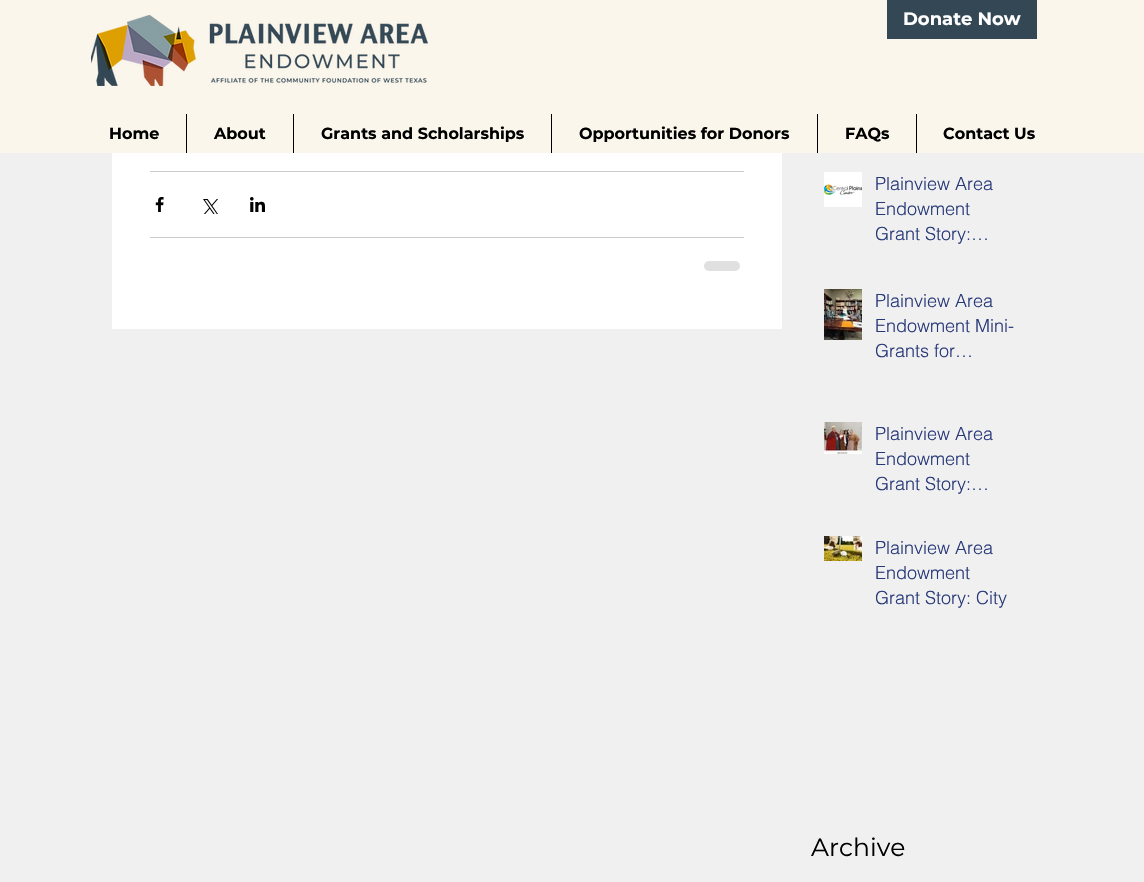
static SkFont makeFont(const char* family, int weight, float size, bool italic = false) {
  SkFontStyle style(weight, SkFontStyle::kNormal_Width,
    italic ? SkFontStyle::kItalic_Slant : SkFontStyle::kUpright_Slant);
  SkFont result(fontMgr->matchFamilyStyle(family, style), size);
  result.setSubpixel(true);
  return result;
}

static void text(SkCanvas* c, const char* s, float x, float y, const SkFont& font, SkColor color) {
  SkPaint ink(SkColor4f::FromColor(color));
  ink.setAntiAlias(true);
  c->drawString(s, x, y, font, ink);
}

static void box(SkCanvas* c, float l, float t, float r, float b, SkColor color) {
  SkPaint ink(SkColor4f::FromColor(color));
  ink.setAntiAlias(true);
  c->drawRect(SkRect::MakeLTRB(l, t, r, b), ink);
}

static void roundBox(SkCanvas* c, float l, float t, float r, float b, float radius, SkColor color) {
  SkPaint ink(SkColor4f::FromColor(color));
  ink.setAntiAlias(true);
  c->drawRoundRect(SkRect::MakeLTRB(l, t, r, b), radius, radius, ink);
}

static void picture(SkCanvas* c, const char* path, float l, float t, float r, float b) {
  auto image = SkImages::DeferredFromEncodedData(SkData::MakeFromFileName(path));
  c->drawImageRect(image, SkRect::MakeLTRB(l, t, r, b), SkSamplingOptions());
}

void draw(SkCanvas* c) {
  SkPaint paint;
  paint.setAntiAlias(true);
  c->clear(0xfff0f0f0);
  box(c, 0, 0, 1144, 153, 0xfffaf6ec);
  picture(c, "img_01.png", 91, 15, 428, 86);
  box(c, 887, 0, 1037, 39, 0xff334754);
  SkFont face1 = makeFont("Montserrat", 700, 18);
  text(c, "Donate Now", 903, 25, face1, 0xffffffff);
  SkFont face2 = makeFont("Montserrat", 700, 16);
  text(c, "Home", 109, 139, face2, 0xff000000);
  box(c, 186, 114, 187, 153, 0xff000000);
  text(c, "About", 214, 139, face2, 0xff000000);
  box(c, 293, 114, 294, 153, 0xff000000);
  text(c, "Grants and Scholarships", 321, 139, face2, 0xff000000);
  box(c, 551, 114, 552, 153, 0xff000000);
  text(c, "Opportunities for Donors", 579, 139, face2, 0xff000000);
  box(c, 817, 114, 818, 153, 0xff000000);
  text(c, "FAQs", 845, 139, face2, 0xff000000);
  box(c, 916, 114, 917, 153, 0xff000000);
  text(c, "Contact Us", 943, 139, face2, 0xff000000);
  box(c, 112, 153, 782, 329, 0xffffffff);
  box(c, 150, 171, 744, 172, 0xffcccccc);
  picture(c, "img_02.png", 155, 197, 164, 212);
  picture(c, "img_03.png", 203, 199, 218, 214);
  picture(c, "img_04.png", 250, 197, 265, 212);
  box(c, 150, 237, 744, 238, 0xffcccccc);
  roundBox(c, 704, 261, 740, 271, 5, 0xffe0e0e0);
  picture(c, "img_05.png", 824, 172, 862, 207);
  picture(c, "img_06.png", 824, 179, 862, 201);
  SkFont face3 = makeFont("helvetica", 300, 18);
  text(c, "Plainview Area", 875, 190, face3, 0xff273878);
  text(c, "Endowment", 875, 215, face3, 0xff273878);
  text(c, "Grant Story:…", 875, 240, face3, 0xff273878);
  picture(c, "img_07.png", 824, 289, 862, 340);
  text(c, "Plainview Area", 875, 307, face3, 0xff273878);
  text(c, "Endowment Mini-", 875, 332, face3, 0xff273878);
  text(c, "Grants for…", 875, 357, face3, 0xff273878);
  picture(c, "img_08.png", 824, 422, 862, 454);
  text(c, "Plainview Area", 875, 440, face3, 0xff273878);
  text(c, "Endowment", 875, 465, face3, 0xff273878);
  text(c, "Grant Story:…", 875, 490, face3, 0xff273878);
  picture(c, "img_09.png", 824, 536, 862, 561);
  text(c, "Plainview Area", 875, 554, face3, 0xff273878);
  text(c, "Endowment", 875, 579, face3, 0xff273878);
  text(c, "Grant Story: City", 875, 604, face3, 0xff273878);
  SkFont face4 = makeFont("Montserrat", 400, 25);
  text(c, "Archive", 811, 856, face4, 0xff000000);
}
